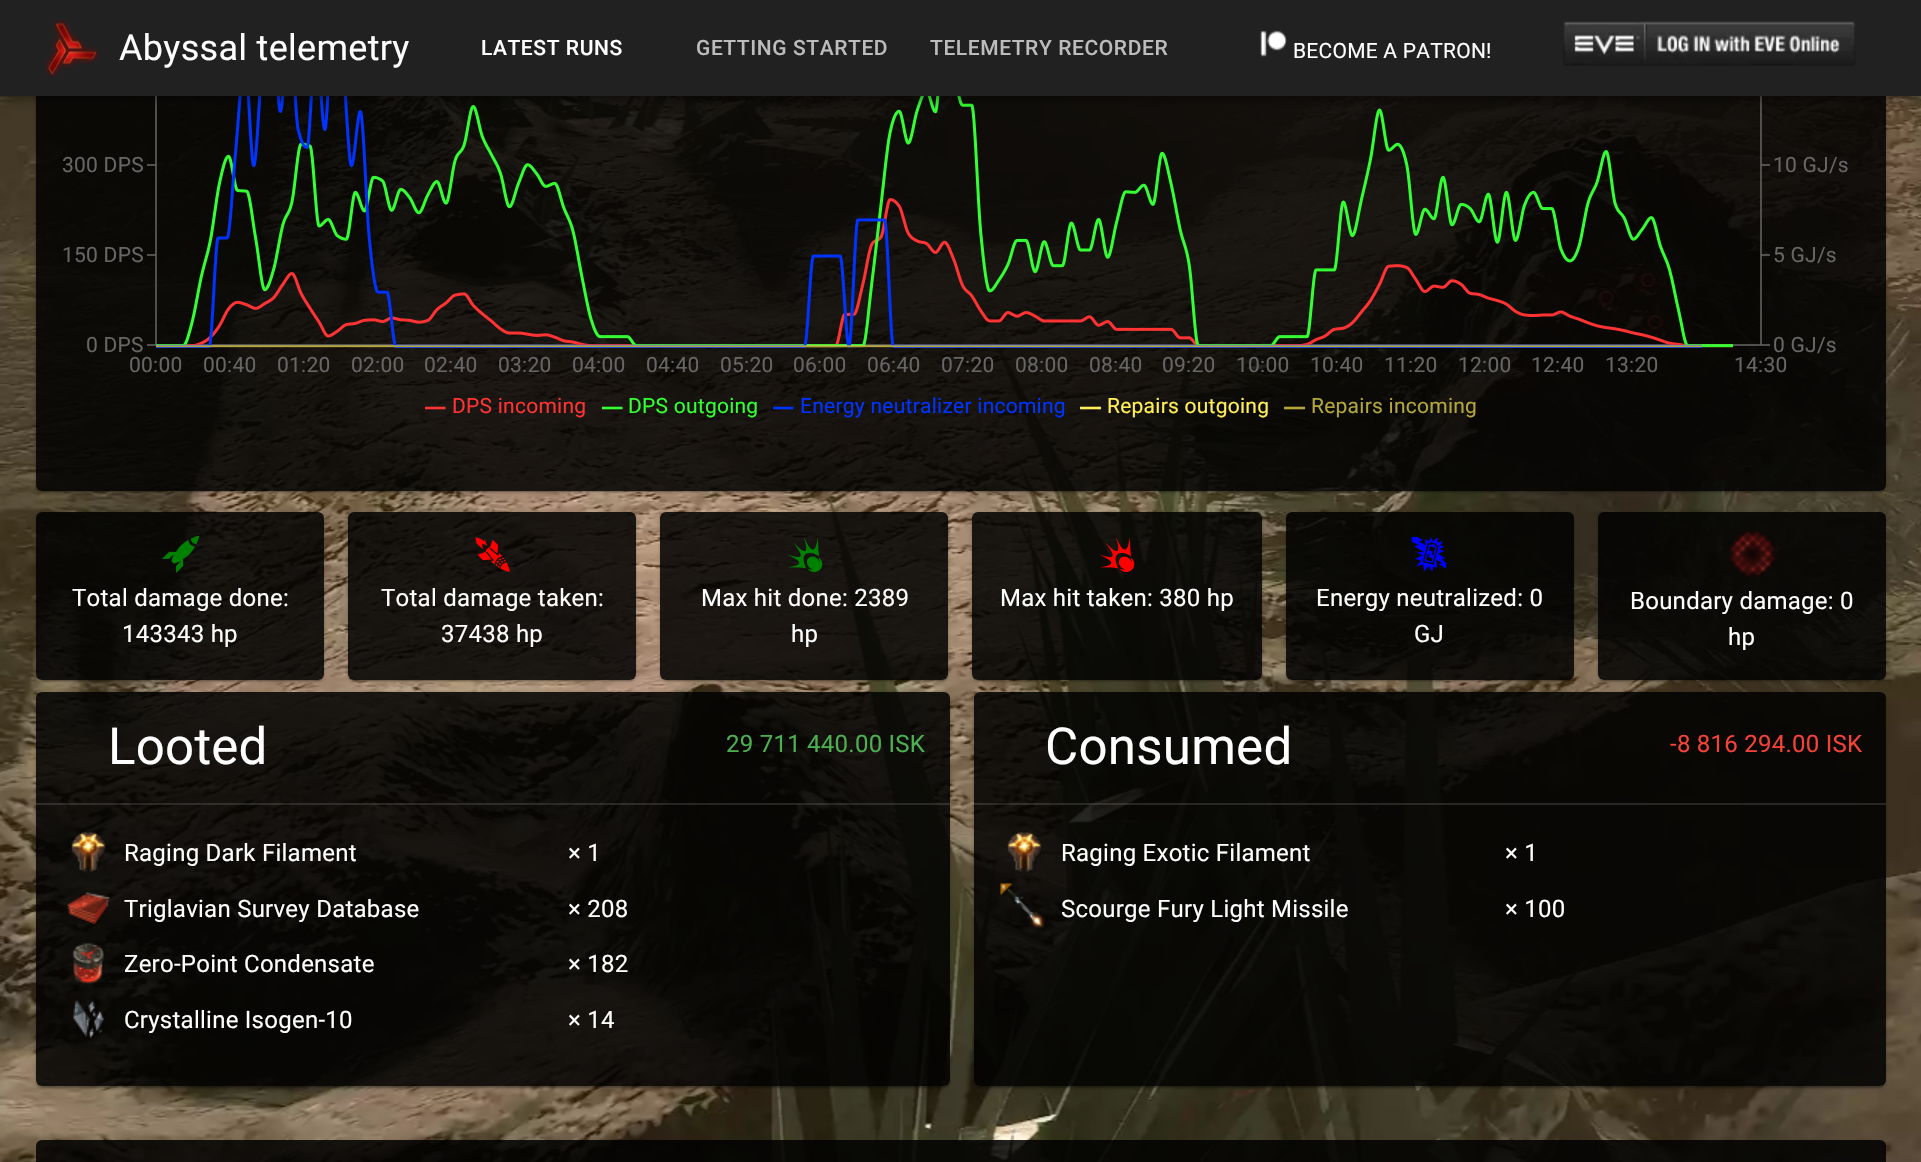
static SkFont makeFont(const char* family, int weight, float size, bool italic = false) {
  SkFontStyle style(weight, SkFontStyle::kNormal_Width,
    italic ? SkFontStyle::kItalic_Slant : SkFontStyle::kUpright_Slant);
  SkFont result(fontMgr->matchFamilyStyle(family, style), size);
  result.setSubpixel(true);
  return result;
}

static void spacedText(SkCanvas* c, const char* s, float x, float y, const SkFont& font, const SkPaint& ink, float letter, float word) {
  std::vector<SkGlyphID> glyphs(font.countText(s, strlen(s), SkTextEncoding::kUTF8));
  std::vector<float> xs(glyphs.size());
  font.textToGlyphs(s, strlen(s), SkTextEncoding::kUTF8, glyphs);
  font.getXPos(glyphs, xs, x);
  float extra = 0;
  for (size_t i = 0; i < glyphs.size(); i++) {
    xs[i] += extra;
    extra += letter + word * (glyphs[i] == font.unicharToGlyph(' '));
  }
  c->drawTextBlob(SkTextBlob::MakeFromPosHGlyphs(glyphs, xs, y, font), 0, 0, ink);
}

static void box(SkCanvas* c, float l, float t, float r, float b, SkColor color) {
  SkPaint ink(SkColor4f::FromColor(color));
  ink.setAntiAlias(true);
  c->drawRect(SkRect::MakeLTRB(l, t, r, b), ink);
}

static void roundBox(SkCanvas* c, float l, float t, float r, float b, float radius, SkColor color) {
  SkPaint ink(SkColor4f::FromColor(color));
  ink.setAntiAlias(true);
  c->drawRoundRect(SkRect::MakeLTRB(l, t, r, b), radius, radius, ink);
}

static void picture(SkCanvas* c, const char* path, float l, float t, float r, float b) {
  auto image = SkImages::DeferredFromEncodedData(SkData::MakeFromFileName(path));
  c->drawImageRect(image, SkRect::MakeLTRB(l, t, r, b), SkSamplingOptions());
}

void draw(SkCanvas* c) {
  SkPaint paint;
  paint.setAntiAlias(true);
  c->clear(0xffffffff);
  picture(c, "img_01.png", 0, 96, 1921, 1162);
  c->save();
  c->clipPath(SkPathBuilder(SkPathFillType::kEvenOdd).moveTo(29, 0).lineTo(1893, 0).lineTo(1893, 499).lineTo(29, 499).close().moveTo(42, -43).lineTo(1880, -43).cubicTo(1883.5f, -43, 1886, -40.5f, 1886, -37).lineTo(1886, 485).cubicTo(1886, 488.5f, 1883.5f, 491, 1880, 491).lineTo(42, 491).cubicTo(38.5f, 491, 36, 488.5f, 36, 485).lineTo(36, -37).cubicTo(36, -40.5f, 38.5f, -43, 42, -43).close().detach(), true);
  paint.setColor(0x1f000000);
  paint.setMaskFilter(SkMaskFilter::MakeBlur(kNormal_SkBlurStyle, 2));
  c->drawRoundRect(SkRect::MakeLTRB(36, -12, 1886, 492), 6, 6, paint);
  paint.setMaskFilter(nullptr);
  c->restore();
  c->save();
  c->clipPath(SkPathBuilder(SkPathFillType::kEvenOdd).moveTo(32, 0).lineTo(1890, 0).lineTo(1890, 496).lineTo(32, 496).close().moveTo(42, -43).lineTo(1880, -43).cubicTo(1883.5f, -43, 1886, -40.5f, 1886, -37).lineTo(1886, 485).cubicTo(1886, 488.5f, 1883.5f, 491, 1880, 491).lineTo(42, 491).cubicTo(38.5f, 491, 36, 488.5f, 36, 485).lineTo(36, -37).cubicTo(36, -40.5f, 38.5f, -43, 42, -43).close().detach(), true);
  paint.setColor(0x24000000);
  paint.setMaskFilter(SkMaskFilter::MakeBlur(kNormal_SkBlurStyle, 1));
  c->drawRoundRect(SkRect::MakeLTRB(36, -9, 1886, 492), 6, 6, paint);
  paint.setMaskFilter(nullptr);
  c->restore();
  c->save();
  c->clipPath(SkPathBuilder(SkPathFillType::kEvenOdd).moveTo(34, 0).lineTo(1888, 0).lineTo(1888, 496).lineTo(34, 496).close().moveTo(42, -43).lineTo(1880, -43).cubicTo(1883.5f, -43, 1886, -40.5f, 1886, -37).lineTo(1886, 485).cubicTo(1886, 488.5f, 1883.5f, 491, 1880, 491).lineTo(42, 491).cubicTo(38.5f, 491, 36, 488.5f, 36, 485).lineTo(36, -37).cubicTo(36, -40.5f, 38.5f, -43, 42, -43).close().detach(), true);
  paint.setColor(0x33000000);
  paint.setMaskFilter(SkMaskFilter::MakeBlur(kNormal_SkBlurStyle, 1));
  c->drawRoundRect(SkRect::MakeLTRB(38, -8, 1884, 492), 5, 5, paint);
  paint.setMaskFilter(nullptr);
  c->restore();
  roundBox(c, 36, -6, 1886, 491, 6, 0xd9000000);
  picture(c, "img_05.png", 147, 96, 1770, 348);
  paint.setColor(0x1f000000);
  paint.setMaskFilter(SkMaskFilter::MakeBlur(kNormal_SkBlurStyle, 7.5f));
  c->drawRect(SkRect::MakeLTRB(0, 2, 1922, 98), paint);
  paint.setMaskFilter(nullptr);
  paint.setColor(0x24000000);
  paint.setMaskFilter(SkMaskFilter::MakeBlur(kNormal_SkBlurStyle, 4));
  c->drawRect(SkRect::MakeLTRB(0, 6, 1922, 102), paint);
  paint.setMaskFilter(nullptr);
  paint.setColor(0x33000000);
  paint.setMaskFilter(SkMaskFilter::MakeBlur(kNormal_SkBlurStyle, 3));
  c->drawRect(SkRect::MakeLTRB(2, 5, 1920, 98), paint);
  paint.setMaskFilter(nullptr);
  box(c, 0, 0, 1921, 96, 0xff212121);
  picture(c, "img_02.png", 44, 19, 100, 78);
  SkFont face1 = makeFont("Roboto", 400, 36);
  paint.setColor(0xffffffff);
  spacedText(c, "Abyssal telemetry", 119, 60, face1, paint, 0.3f, 0);
  SkFont face2 = makeFont("Roboto", 500, 21);
  spacedText(c, "LATEST RUNS", 481, 55, face2, paint, 0.6f, 0);
  paint.setColor(0xffbcbcbc);
  spacedText(c, "GETTING STARTED", 696, 55, face2, paint, 0.6f, 0);
  spacedText(c, "TELEMETRY RECORDER", 930, 55, face2, paint, 0.6f, 0);
  picture(c, "img_03.png", 1260, 30, 1287, 57);
  SkFont face3 = makeFont("Roboto", 400, 21);
  paint.setColor(0xffffffff);
  spacedText(c, "BECOME A PATRON!", 1293, 58, face3, paint, 0.25f, 0);
  picture(c, "img_04.png", 1563, 21, 1856, 66);
  paint.setColor(0xff666666);
  spacedText(c, "300 DPS", 62, 172, face3, paint, 0.25f, 0);
  spacedText(c, "10 GJ/s", 1773, 172, face3, paint, 0.25f, 0);
  spacedText(c, "150 DPS", 62, 262, face3, paint, 0.25f, 0);
  spacedText(c, "5 GJ/s", 1773, 262, face3, paint, 0.25f, 0);
  spacedText(c, "0 DPS", 86, 352, face3, paint, 0.25f, 0);
  spacedText(c, "0 GJ/s", 1773, 352, face3, paint, 0.25f, 0);
  spacedText(c, "00:00", 129, 372, face3, paint, 0.25f, 0);
  spacedText(c, "00:40", 203, 372, face3, paint, 0.25f, 0);
  spacedText(c, "01:20", 277, 372, face3, paint, 0.25f, 0);
  spacedText(c, "02:00", 351, 372, face3, paint, 0.25f, 0);
  spacedText(c, "02:40", 424, 372, face3, paint, 0.25f, 0);
  spacedText(c, "03:20", 498, 372, face3, paint, 0.25f, 0);
  spacedText(c, "04:00", 572, 372, face3, paint, 0.25f, 0);
  spacedText(c, "04:40", 646, 372, face3, paint, 0.25f, 0);
  spacedText(c, "05:20", 720, 372, face3, paint, 0.25f, 0);
  spacedText(c, "06:00", 793, 372, face3, paint, 0.25f, 0);
  spacedText(c, "06:40", 867, 372, face3, paint, 0.25f, 0);
  spacedText(c, "07:20", 941, 372, face3, paint, 0.25f, 0);
  spacedText(c, "08:00", 1015, 372, face3, paint, 0.25f, 0);
  spacedText(c, "08:40", 1089, 372, face3, paint, 0.25f, 0);
  spacedText(c, "09:20", 1162, 372, face3, paint, 0.25f, 0);
  spacedText(c, "10:00", 1236, 372, face3, paint, 0.25f, 0);
  spacedText(c, "10:40", 1310, 372, face3, paint, 0.25f, 0);
  spacedText(c, "11:20", 1384, 372, face3, paint, 0.25f, 0);
  spacedText(c, "12:00", 1458, 372, face3, paint, 0.25f, 0);
  spacedText(c, "12:40", 1531, 372, face3, paint, 0.25f, 0);
  spacedText(c, "13:20", 1605, 372, face3, paint, 0.25f, 0);
  spacedText(c, "14:30", 1734, 372, face3, paint, 0.25f, 0);
  c->save();
  c->clipRect(SkRect::MakeLTRB(425, 398, 446, 419));
  paint.setStyle(SkPaint::kStroke_Style);
  paint.setStrokeWidth(2.6f);
  paint.setColor(0xffff3333);
  c->drawPath(SkPathBuilder().moveTo(424.5f, 408).lineTo(445.5f, 408).detach(), paint);
  c->restore();
  paint.setStyle(SkPaint::kFill_Style);
  spacedText(c, "DPS incoming", 452, 413, face3, paint, 0.25f, 0);
  c->save();
  c->clipRect(SkRect::MakeLTRB(602, 398, 623, 419));
  paint.setStyle(SkPaint::kStroke_Style);
  paint.setColor(0xff33ff33);
  c->drawPath(SkPathBuilder().moveTo(601.5f, 408).lineTo(622.5f, 408).detach(), paint);
  c->restore();
  paint.setStyle(SkPaint::kFill_Style);
  spacedText(c, "DPS outgoing", 628, 413, face3, paint, 0.25f, 0);
  c->save();
  c->clipRect(SkRect::MakeLTRB(773, 398, 794, 419));
  paint.setStyle(SkPaint::kStroke_Style);
  paint.setColor(0xff0033ff);
  c->drawPath(SkPathBuilder().moveTo(772.5f, 408).lineTo(793.5f, 408).detach(), paint);
  c->restore();
  paint.setStyle(SkPaint::kFill_Style);
  spacedText(c, "Energy neutralizer incoming", 800, 413, face3, paint, 0.25f, 0);
  paint.setStyle(SkPaint::kStroke_Style);
  paint.setColor(0xffffee58);
  c->drawPath(SkPathBuilder().moveTo(1080, 408).lineTo(1101, 408).detach(), paint);
  paint.setStyle(SkPaint::kFill_Style);
  spacedText(c, "Repairs outgoing", 1107, 413, face3, paint, 0.25f, 0);
  paint.setStyle(SkPaint::kStroke_Style);
  paint.setColor(0xffb2a63d);
  c->drawPath(SkPathBuilder().moveTo(1284, 408).lineTo(1305, 408).detach(), paint);
  paint.setStyle(SkPaint::kFill_Style);
  spacedText(c, "Repairs incoming", 1311, 413, face3, paint, 0.25f, 0);
  c->save();
  c->clipPath(SkPathBuilder(SkPathFillType::kEvenOdd).moveTo(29, 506).lineTo(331, 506).lineTo(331, 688).lineTo(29, 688).close().moveTo(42, 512).lineTo(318, 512).cubicTo(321.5f, 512, 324, 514.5f, 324, 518).lineTo(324, 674).cubicTo(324, 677.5f, 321.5f, 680, 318, 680).lineTo(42, 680).cubicTo(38.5f, 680, 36, 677.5f, 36, 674).lineTo(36, 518).cubicTo(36, 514.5f, 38.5f, 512, 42, 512).close().detach(), true);
  paint.setColor(0x1f000000);
  paint.setMaskFilter(SkMaskFilter::MakeBlur(kNormal_SkBlurStyle, 2));
  c->drawRoundRect(SkRect::MakeLTRB(36, 513, 324, 681), 6, 6, paint);
  paint.setMaskFilter(nullptr);
  c->restore();
  c->save();
  c->clipPath(SkPathBuilder(SkPathFillType::kEvenOdd).moveTo(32, 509).lineTo(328, 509).lineTo(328, 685).lineTo(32, 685).close().moveTo(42, 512).lineTo(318, 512).cubicTo(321.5f, 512, 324, 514.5f, 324, 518).lineTo(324, 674).cubicTo(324, 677.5f, 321.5f, 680, 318, 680).lineTo(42, 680).cubicTo(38.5f, 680, 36, 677.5f, 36, 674).lineTo(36, 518).cubicTo(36, 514.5f, 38.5f, 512, 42, 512).close().detach(), true);
  paint.setColor(0x24000000);
  paint.setMaskFilter(SkMaskFilter::MakeBlur(kNormal_SkBlurStyle, 1));
  c->drawRoundRect(SkRect::MakeLTRB(36, 513, 324, 681), 6, 6, paint);
  paint.setMaskFilter(nullptr);
  c->restore();
  c->save();
  c->clipPath(SkPathBuilder(SkPathFillType::kEvenOdd).moveTo(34, 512).lineTo(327, 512).lineTo(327, 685).lineTo(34, 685).close().moveTo(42, 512).lineTo(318, 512).cubicTo(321.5f, 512, 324, 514.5f, 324, 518).lineTo(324, 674).cubicTo(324, 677.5f, 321.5f, 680, 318, 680).lineTo(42, 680).cubicTo(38.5f, 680, 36, 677.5f, 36, 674).lineTo(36, 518).cubicTo(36, 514.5f, 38.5f, 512, 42, 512).close().detach(), true);
  paint.setColor(0x33000000);
  paint.setMaskFilter(SkMaskFilter::MakeBlur(kNormal_SkBlurStyle, 1));
  c->drawRoundRect(SkRect::MakeLTRB(38, 516, 323, 681), 5, 5, paint);
  paint.setMaskFilter(nullptr);
  c->restore();
  roundBox(c, 36, 512, 324, 680, 6, 0xd9000000);
  picture(c, "img_06.png", 162, 536, 200, 573);
  SkFont face4 = makeFont("Roboto", 400, 24);
  paint.setColor(0xffffffff);
  spacedText(c, "Total damage done:", 72, 606, face4, paint, 0.25f, 0);
  spacedText(c, "143343 hp", 122, 642, face4, paint, 0.25f, 0);
  c->save();
  c->clipPath(SkPathBuilder(SkPathFillType::kEvenOdd).moveTo(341, 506).lineTo(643, 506).lineTo(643, 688).lineTo(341, 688).close().moveTo(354, 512).lineTo(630, 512).cubicTo(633.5f, 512, 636, 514.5f, 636, 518).lineTo(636, 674).cubicTo(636, 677.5f, 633.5f, 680, 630, 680).lineTo(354, 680).cubicTo(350.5f, 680, 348, 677.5f, 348, 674).lineTo(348, 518).cubicTo(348, 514.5f, 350.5f, 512, 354, 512).close().detach(), true);
  paint.setColor(0x1f000000);
  paint.setMaskFilter(SkMaskFilter::MakeBlur(kNormal_SkBlurStyle, 2));
  c->drawRoundRect(SkRect::MakeLTRB(348, 513, 636, 681), 6, 6, paint);
  paint.setMaskFilter(nullptr);
  c->restore();
  c->save();
  c->clipPath(SkPathBuilder(SkPathFillType::kEvenOdd).moveTo(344, 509).lineTo(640, 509).lineTo(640, 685).lineTo(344, 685).close().moveTo(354, 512).lineTo(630, 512).cubicTo(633.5f, 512, 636, 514.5f, 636, 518).lineTo(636, 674).cubicTo(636, 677.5f, 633.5f, 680, 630, 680).lineTo(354, 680).cubicTo(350.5f, 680, 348, 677.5f, 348, 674).lineTo(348, 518).cubicTo(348, 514.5f, 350.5f, 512, 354, 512).close().detach(), true);
  paint.setColor(0x24000000);
  paint.setMaskFilter(SkMaskFilter::MakeBlur(kNormal_SkBlurStyle, 1));
  c->drawRoundRect(SkRect::MakeLTRB(348, 513, 636, 681), 6, 6, paint);
  paint.setMaskFilter(nullptr);
  c->restore();
  c->save();
  c->clipPath(SkPathBuilder(SkPathFillType::kEvenOdd).moveTo(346, 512).lineTo(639, 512).lineTo(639, 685).lineTo(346, 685).close().moveTo(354, 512).lineTo(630, 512).cubicTo(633.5f, 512, 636, 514.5f, 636, 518).lineTo(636, 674).cubicTo(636, 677.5f, 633.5f, 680, 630, 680).lineTo(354, 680).cubicTo(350.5f, 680, 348, 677.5f, 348, 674).lineTo(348, 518).cubicTo(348, 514.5f, 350.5f, 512, 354, 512).close().detach(), true);
  paint.setColor(0x33000000);
  paint.setMaskFilter(SkMaskFilter::MakeBlur(kNormal_SkBlurStyle, 1));
  c->drawRoundRect(SkRect::MakeLTRB(350, 516, 635, 681), 5, 5, paint);
  paint.setMaskFilter(nullptr);
  c->restore();
  roundBox(c, 348, 512, 636, 680, 6, 0xd9000000);
  picture(c, "img_07.png", 475, 537, 510, 572);
  paint.setColor(0xffffffff);
  spacedText(c, "Total damage taken:", 381, 606, face4, paint, 0.25f, 0);
  spacedText(c, "37438 hp", 441, 642, face4, paint, 0.25f, 0);
  c->save();
  c->clipPath(SkPathBuilder(SkPathFillType::kEvenOdd).moveTo(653, 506).lineTo(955, 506).lineTo(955, 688).lineTo(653, 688).close().moveTo(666, 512).lineTo(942, 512).cubicTo(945.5f, 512, 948, 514.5f, 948, 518).lineTo(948, 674).cubicTo(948, 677.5f, 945.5f, 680, 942, 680).lineTo(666, 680).cubicTo(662.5f, 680, 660, 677.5f, 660, 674).lineTo(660, 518).cubicTo(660, 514.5f, 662.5f, 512, 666, 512).close().detach(), true);
  paint.setColor(0x1f000000);
  paint.setMaskFilter(SkMaskFilter::MakeBlur(kNormal_SkBlurStyle, 2));
  c->drawRoundRect(SkRect::MakeLTRB(660, 513, 948, 681), 6, 6, paint);
  paint.setMaskFilter(nullptr);
  c->restore();
  c->save();
  c->clipPath(SkPathBuilder(SkPathFillType::kEvenOdd).moveTo(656, 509).lineTo(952, 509).lineTo(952, 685).lineTo(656, 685).close().moveTo(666, 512).lineTo(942, 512).cubicTo(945.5f, 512, 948, 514.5f, 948, 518).lineTo(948, 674).cubicTo(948, 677.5f, 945.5f, 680, 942, 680).lineTo(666, 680).cubicTo(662.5f, 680, 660, 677.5f, 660, 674).lineTo(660, 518).cubicTo(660, 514.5f, 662.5f, 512, 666, 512).close().detach(), true);
  paint.setColor(0x24000000);
  paint.setMaskFilter(SkMaskFilter::MakeBlur(kNormal_SkBlurStyle, 1));
  c->drawRoundRect(SkRect::MakeLTRB(660, 513, 948, 681), 6, 6, paint);
  paint.setMaskFilter(nullptr);
  c->restore();
  c->save();
  c->clipPath(SkPathBuilder(SkPathFillType::kEvenOdd).moveTo(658, 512).lineTo(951, 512).lineTo(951, 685).lineTo(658, 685).close().moveTo(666, 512).lineTo(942, 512).cubicTo(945.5f, 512, 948, 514.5f, 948, 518).lineTo(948, 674).cubicTo(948, 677.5f, 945.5f, 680, 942, 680).lineTo(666, 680).cubicTo(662.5f, 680, 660, 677.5f, 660, 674).lineTo(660, 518).cubicTo(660, 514.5f, 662.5f, 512, 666, 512).close().detach(), true);
  paint.setColor(0x33000000);
  paint.setMaskFilter(SkMaskFilter::MakeBlur(kNormal_SkBlurStyle, 1));
  c->drawRoundRect(SkRect::MakeLTRB(662, 516, 947, 681), 5, 5, paint);
  paint.setMaskFilter(nullptr);
  c->restore();
  roundBox(c, 660, 512, 948, 680, 6, 0xd9000000);
  picture(c, "img_08.png", 787, 537, 823, 573);
  paint.setColor(0xffffffff);
  spacedText(c, "Max hit done: 2389", 701, 606, face4, paint, 0.25f, 0);
  spacedText(c, "hp", 791, 642, face4, paint, 0.25f, 0);
  c->save();
  c->clipPath(SkPathBuilder(SkPathFillType::kEvenOdd).moveTo(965, 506).lineTo(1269, 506).lineTo(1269, 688).lineTo(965, 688).close().moveTo(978, 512).lineTo(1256, 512).cubicTo(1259.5f, 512, 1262, 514.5f, 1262, 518).lineTo(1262, 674).cubicTo(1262, 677.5f, 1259.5f, 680, 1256, 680).lineTo(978, 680).cubicTo(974.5f, 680, 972, 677.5f, 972, 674).lineTo(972, 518).cubicTo(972, 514.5f, 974.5f, 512, 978, 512).close().detach(), true);
  paint.setColor(0x1f000000);
  paint.setMaskFilter(SkMaskFilter::MakeBlur(kNormal_SkBlurStyle, 2));
  c->drawRoundRect(SkRect::MakeLTRB(972, 513, 1262, 681), 6, 6, paint);
  paint.setMaskFilter(nullptr);
  c->restore();
  c->save();
  c->clipPath(SkPathBuilder(SkPathFillType::kEvenOdd).moveTo(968, 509).lineTo(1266, 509).lineTo(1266, 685).lineTo(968, 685).close().moveTo(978, 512).lineTo(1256, 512).cubicTo(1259.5f, 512, 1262, 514.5f, 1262, 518).lineTo(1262, 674).cubicTo(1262, 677.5f, 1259.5f, 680, 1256, 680).lineTo(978, 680).cubicTo(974.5f, 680, 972, 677.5f, 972, 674).lineTo(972, 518).cubicTo(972, 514.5f, 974.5f, 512, 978, 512).close().detach(), true);
  paint.setColor(0x24000000);
  paint.setMaskFilter(SkMaskFilter::MakeBlur(kNormal_SkBlurStyle, 1));
  c->drawRoundRect(SkRect::MakeLTRB(972, 513, 1262, 681), 6, 6, paint);
  paint.setMaskFilter(nullptr);
  c->restore();
  c->save();
  c->clipPath(SkPathBuilder(SkPathFillType::kEvenOdd).moveTo(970, 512).lineTo(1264, 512).lineTo(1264, 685).lineTo(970, 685).close().moveTo(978, 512).lineTo(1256, 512).cubicTo(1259.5f, 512, 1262, 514.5f, 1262, 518).lineTo(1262, 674).cubicTo(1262, 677.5f, 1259.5f, 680, 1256, 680).lineTo(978, 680).cubicTo(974.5f, 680, 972, 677.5f, 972, 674).lineTo(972, 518).cubicTo(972, 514.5f, 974.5f, 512, 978, 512).close().detach(), true);
  paint.setColor(0x33000000);
  paint.setMaskFilter(SkMaskFilter::MakeBlur(kNormal_SkBlurStyle, 1));
  c->drawRoundRect(SkRect::MakeLTRB(974, 516, 1260, 681), 5, 5, paint);
  paint.setMaskFilter(nullptr);
  c->restore();
  roundBox(c, 972, 512, 1262, 680, 6, 0xd9000000);
  picture(c, "img_09.png", 1099, 537, 1135, 573);
  paint.setColor(0xffffffff);
  spacedText(c, "Max hit taken: 380 hp", 1000, 606, face4, paint, 0.25f, 0);
  c->save();
  c->clipPath(SkPathBuilder(SkPathFillType::kEvenOdd).moveTo(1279, 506).lineTo(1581, 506).lineTo(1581, 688).lineTo(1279, 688).close().moveTo(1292, 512).lineTo(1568, 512).cubicTo(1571.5f, 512, 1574, 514.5f, 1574, 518).lineTo(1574, 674).cubicTo(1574, 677.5f, 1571.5f, 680, 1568, 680).lineTo(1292, 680).cubicTo(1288.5f, 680, 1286, 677.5f, 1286, 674).lineTo(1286, 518).cubicTo(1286, 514.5f, 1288.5f, 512, 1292, 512).close().detach(), true);
  paint.setColor(0x1f000000);
  paint.setMaskFilter(SkMaskFilter::MakeBlur(kNormal_SkBlurStyle, 2));
  c->drawRoundRect(SkRect::MakeLTRB(1286, 513, 1574, 681), 6, 6, paint);
  paint.setMaskFilter(nullptr);
  c->restore();
  c->save();
  c->clipPath(SkPathBuilder(SkPathFillType::kEvenOdd).moveTo(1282, 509).lineTo(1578, 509).lineTo(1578, 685).lineTo(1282, 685).close().moveTo(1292, 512).lineTo(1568, 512).cubicTo(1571.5f, 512, 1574, 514.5f, 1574, 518).lineTo(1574, 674).cubicTo(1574, 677.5f, 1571.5f, 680, 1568, 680).lineTo(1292, 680).cubicTo(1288.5f, 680, 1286, 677.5f, 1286, 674).lineTo(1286, 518).cubicTo(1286, 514.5f, 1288.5f, 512, 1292, 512).close().detach(), true);
  paint.setColor(0x24000000);
  paint.setMaskFilter(SkMaskFilter::MakeBlur(kNormal_SkBlurStyle, 1));
  c->drawRoundRect(SkRect::MakeLTRB(1286, 513, 1574, 681), 6, 6, paint);
  paint.setMaskFilter(nullptr);
  c->restore();
  c->save();
  c->clipPath(SkPathBuilder(SkPathFillType::kEvenOdd).moveTo(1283, 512).lineTo(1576, 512).lineTo(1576, 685).lineTo(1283, 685).close().moveTo(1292, 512).lineTo(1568, 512).cubicTo(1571.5f, 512, 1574, 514.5f, 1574, 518).lineTo(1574, 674).cubicTo(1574, 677.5f, 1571.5f, 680, 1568, 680).lineTo(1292, 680).cubicTo(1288.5f, 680, 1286, 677.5f, 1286, 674).lineTo(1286, 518).cubicTo(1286, 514.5f, 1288.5f, 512, 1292, 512).close().detach(), true);
  paint.setColor(0x33000000);
  paint.setMaskFilter(SkMaskFilter::MakeBlur(kNormal_SkBlurStyle, 1));
  c->drawRoundRect(SkRect::MakeLTRB(1287, 516, 1572, 681), 5, 5, paint);
  paint.setMaskFilter(nullptr);
  c->restore();
  roundBox(c, 1286, 512, 1574, 680, 6, 0xd9000000);
  picture(c, "img_10.png", 1411, 537, 1447, 572);
  paint.setColor(0xffffffff);
  spacedText(c, "Energy neutralized: 0", 1316, 606, face4, paint, 0.25f, 0);
  spacedText(c, "GJ", 1414, 642, face4, paint, 0.25f, 0);
  c->save();
  c->clipPath(SkPathBuilder(SkPathFillType::kEvenOdd).moveTo(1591, 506).lineTo(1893, 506).lineTo(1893, 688).lineTo(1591, 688).close().moveTo(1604, 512).lineTo(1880, 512).cubicTo(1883.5f, 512, 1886, 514.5f, 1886, 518).lineTo(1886, 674).cubicTo(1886, 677.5f, 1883.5f, 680, 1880, 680).lineTo(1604, 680).cubicTo(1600.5f, 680, 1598, 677.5f, 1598, 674).lineTo(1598, 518).cubicTo(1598, 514.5f, 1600.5f, 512, 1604, 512).close().detach(), true);
  paint.setColor(0x1f000000);
  paint.setMaskFilter(SkMaskFilter::MakeBlur(kNormal_SkBlurStyle, 2));
  c->drawRoundRect(SkRect::MakeLTRB(1598, 513, 1886, 681), 6, 6, paint);
  paint.setMaskFilter(nullptr);
  c->restore();
  c->save();
  c->clipPath(SkPathBuilder(SkPathFillType::kEvenOdd).moveTo(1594, 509).lineTo(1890, 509).lineTo(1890, 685).lineTo(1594, 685).close().moveTo(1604, 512).lineTo(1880, 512).cubicTo(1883.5f, 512, 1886, 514.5f, 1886, 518).lineTo(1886, 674).cubicTo(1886, 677.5f, 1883.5f, 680, 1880, 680).lineTo(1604, 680).cubicTo(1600.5f, 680, 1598, 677.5f, 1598, 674).lineTo(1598, 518).cubicTo(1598, 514.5f, 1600.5f, 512, 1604, 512).close().detach(), true);
  paint.setColor(0x24000000);
  paint.setMaskFilter(SkMaskFilter::MakeBlur(kNormal_SkBlurStyle, 1));
  c->drawRoundRect(SkRect::MakeLTRB(1598, 513, 1886, 681), 6, 6, paint);
  paint.setMaskFilter(nullptr);
  c->restore();
  c->save();
  c->clipPath(SkPathBuilder(SkPathFillType::kEvenOdd).moveTo(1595, 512).lineTo(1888, 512).lineTo(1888, 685).lineTo(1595, 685).close().moveTo(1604, 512).lineTo(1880, 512).cubicTo(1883.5f, 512, 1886, 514.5f, 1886, 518).lineTo(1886, 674).cubicTo(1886, 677.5f, 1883.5f, 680, 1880, 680).lineTo(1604, 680).cubicTo(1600.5f, 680, 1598, 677.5f, 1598, 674).lineTo(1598, 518).cubicTo(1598, 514.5f, 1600.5f, 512, 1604, 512).close().detach(), true);
  paint.setColor(0x33000000);
  paint.setMaskFilter(SkMaskFilter::MakeBlur(kNormal_SkBlurStyle, 1));
  c->drawRoundRect(SkRect::MakeLTRB(1599, 516, 1884, 681), 5, 5, paint);
  paint.setMaskFilter(nullptr);
  c->restore();
  roundBox(c, 1598, 512, 1886, 680, 6, 0xd9000000);
  picture(c, "img_11.png", 1728, 530, 1776, 577);
  paint.setColor(0xffffffff);
  spacedText(c, "Boundary damage: 0", 1630, 609, face4, paint, 0.25f, 0);
  spacedText(c, "hp", 1728, 645, face4, paint, 0.25f, 0);
  c->save();
  c->clipPath(SkPathBuilder(SkPathFillType::kEvenOdd).moveTo(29, 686).lineTo(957, 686).lineTo(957, 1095).lineTo(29, 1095).close().moveTo(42, 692).lineTo(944, 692).cubicTo(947.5f, 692, 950, 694.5f, 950, 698).lineTo(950, 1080).cubicTo(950, 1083.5f, 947.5f, 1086, 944, 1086).lineTo(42, 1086).cubicTo(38.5f, 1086, 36, 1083.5f, 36, 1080).lineTo(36, 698).cubicTo(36, 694.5f, 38.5f, 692, 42, 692).close().detach(), true);
  paint.setColor(0x1f000000);
  paint.setMaskFilter(SkMaskFilter::MakeBlur(kNormal_SkBlurStyle, 2));
  c->drawRoundRect(SkRect::MakeLTRB(36, 693, 950, 1088), 6, 6, paint);
  paint.setMaskFilter(nullptr);
  c->restore();
  c->save();
  c->clipPath(SkPathBuilder(SkPathFillType::kEvenOdd).moveTo(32, 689).lineTo(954, 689).lineTo(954, 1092).lineTo(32, 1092).close().moveTo(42, 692).lineTo(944, 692).cubicTo(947.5f, 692, 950, 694.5f, 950, 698).lineTo(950, 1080).cubicTo(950, 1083.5f, 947.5f, 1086, 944, 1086).lineTo(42, 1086).cubicTo(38.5f, 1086, 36, 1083.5f, 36, 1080).lineTo(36, 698).cubicTo(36, 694.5f, 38.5f, 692, 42, 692).close().detach(), true);
  paint.setColor(0x24000000);
  paint.setMaskFilter(SkMaskFilter::MakeBlur(kNormal_SkBlurStyle, 1));
  c->drawRoundRect(SkRect::MakeLTRB(36, 693, 950, 1088), 6, 6, paint);
  paint.setMaskFilter(nullptr);
  c->restore();
  c->save();
  c->clipPath(SkPathBuilder(SkPathFillType::kEvenOdd).moveTo(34, 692).lineTo(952, 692).lineTo(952, 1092).lineTo(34, 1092).close().moveTo(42, 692).lineTo(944, 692).cubicTo(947.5f, 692, 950, 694.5f, 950, 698).lineTo(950, 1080).cubicTo(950, 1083.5f, 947.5f, 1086, 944, 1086).lineTo(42, 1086).cubicTo(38.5f, 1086, 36, 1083.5f, 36, 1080).lineTo(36, 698).cubicTo(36, 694.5f, 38.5f, 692, 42, 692).close().detach(), true);
  paint.setColor(0x33000000);
  paint.setMaskFilter(SkMaskFilter::MakeBlur(kNormal_SkBlurStyle, 1));
  c->drawRoundRect(SkRect::MakeLTRB(38, 696, 948, 1088), 5, 5, paint);
  paint.setMaskFilter(nullptr);
  c->restore();
  roundBox(c, 36, 692, 950, 1086, 6, 0xd9000000);
  SkFont face5 = makeFont("Roboto", 400, 51);
  paint.setColor(0xffffffff);
  spacedText(c, "Looted", 108, 764, face5, paint, 0.25f, 0);
  paint.setColor(0xff4caf50);
  spacedText(c, "29 711 440.00 ISK", 726, 752, face4, paint, 0.25f, 0);
  box(c, 36, 803, 950, 805, 0x1fffffff);
  picture(c, "img_12.png", 71, 832, 106, 872);
  paint.setColor(0xffffffff);
  spacedText(c, "Raging Dark Filament", 124, 861, face4, paint, 0.25f, 0);
  spacedText(c, "× 1", 568, 861, face4, paint, 0.25f, 0);
  picture(c, "img_13.png", 66, 892, 110, 925);
  spacedText(c, "Triglavian Survey Database", 124, 917, face4, paint, 0.25f, 0);
  spacedText(c, "× 208", 568, 917, face4, paint, 0.25f, 0);
  picture(c, "img_14.png", 72, 943, 105, 984);
  spacedText(c, "Zero-Point Condensate", 124, 972, face4, paint, 0.25f, 0);
  spacedText(c, "× 182", 568, 972, face4, paint, 0.25f, 0);
  picture(c, "img_15.png", 73, 1000, 104, 1039);
  spacedText(c, "Crystalline Isogen-10", 124, 1028, face4, paint, 0.25f, 0);
  spacedText(c, "× 14", 568, 1028, face4, paint, 0.25f, 0);
  c->save();
  c->clipPath(SkPathBuilder(SkPathFillType::kEvenOdd).moveTo(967, 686).lineTo(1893, 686).lineTo(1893, 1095).lineTo(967, 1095).close().moveTo(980, 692).lineTo(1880, 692).cubicTo(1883.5f, 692, 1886, 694.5f, 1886, 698).lineTo(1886, 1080).cubicTo(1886, 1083.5f, 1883.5f, 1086, 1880, 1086).lineTo(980, 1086).cubicTo(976.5f, 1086, 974, 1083.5f, 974, 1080).lineTo(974, 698).cubicTo(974, 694.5f, 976.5f, 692, 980, 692).close().detach(), true);
  paint.setColor(0x1f000000);
  paint.setMaskFilter(SkMaskFilter::MakeBlur(kNormal_SkBlurStyle, 2));
  c->drawRoundRect(SkRect::MakeLTRB(974, 693, 1886, 1088), 6, 6, paint);
  paint.setMaskFilter(nullptr);
  c->restore();
  c->save();
  c->clipPath(SkPathBuilder(SkPathFillType::kEvenOdd).moveTo(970, 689).lineTo(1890, 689).lineTo(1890, 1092).lineTo(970, 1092).close().moveTo(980, 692).lineTo(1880, 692).cubicTo(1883.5f, 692, 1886, 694.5f, 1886, 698).lineTo(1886, 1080).cubicTo(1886, 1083.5f, 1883.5f, 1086, 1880, 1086).lineTo(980, 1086).cubicTo(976.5f, 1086, 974, 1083.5f, 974, 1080).lineTo(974, 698).cubicTo(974, 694.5f, 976.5f, 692, 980, 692).close().detach(), true);
  paint.setColor(0x24000000);
  paint.setMaskFilter(SkMaskFilter::MakeBlur(kNormal_SkBlurStyle, 1));
  c->drawRoundRect(SkRect::MakeLTRB(974, 693, 1886, 1088), 6, 6, paint);
  paint.setMaskFilter(nullptr);
  c->restore();
  c->save();
  c->clipPath(SkPathBuilder(SkPathFillType::kEvenOdd).moveTo(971, 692).lineTo(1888, 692).lineTo(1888, 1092).lineTo(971, 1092).close().moveTo(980, 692).lineTo(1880, 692).cubicTo(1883.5f, 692, 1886, 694.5f, 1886, 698).lineTo(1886, 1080).cubicTo(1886, 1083.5f, 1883.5f, 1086, 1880, 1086).lineTo(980, 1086).cubicTo(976.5f, 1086, 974, 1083.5f, 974, 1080).lineTo(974, 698).cubicTo(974, 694.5f, 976.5f, 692, 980, 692).close().detach(), true);
  paint.setColor(0x33000000);
  paint.setMaskFilter(SkMaskFilter::MakeBlur(kNormal_SkBlurStyle, 1));
  c->drawRoundRect(SkRect::MakeLTRB(975, 696, 1884, 1088), 5, 5, paint);
  paint.setMaskFilter(nullptr);
  c->restore();
  roundBox(c, 974, 692, 1886, 1086, 6, 0xd9000000);
  paint.setColor(0xffffffff);
  spacedText(c, "Consumed", 1045, 764, face5, paint, 0.25f, 0);
  paint.setColor(0xfff44336);
  spacedText(c, "-8 816 294.00 ISK", 1670, 752, face4, paint, 0.25f, 0);
  box(c, 974, 803, 1886, 805, 0x1fffffff);
  picture(c, "img_16.png", 1007, 832, 1042, 873);
  paint.setColor(0xffffffff);
  spacedText(c, "Raging Exotic Filament", 1061, 861, face4, paint, 0.25f, 0);
  spacedText(c, "× 1", 1505, 861, face4, paint, 0.25f, 0);
  picture(c, "img_17.png", 1000, 883, 1045, 929);
  spacedText(c, "Scourge Fury Light Missile", 1061, 917, face4, paint, 0.25f, 0);
  spacedText(c, "× 100", 1505, 917, face4, paint, 0.25f, 0);
  roundBox(c, 36, 1140, 1886, 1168, 6, 0xd9000000);
}
